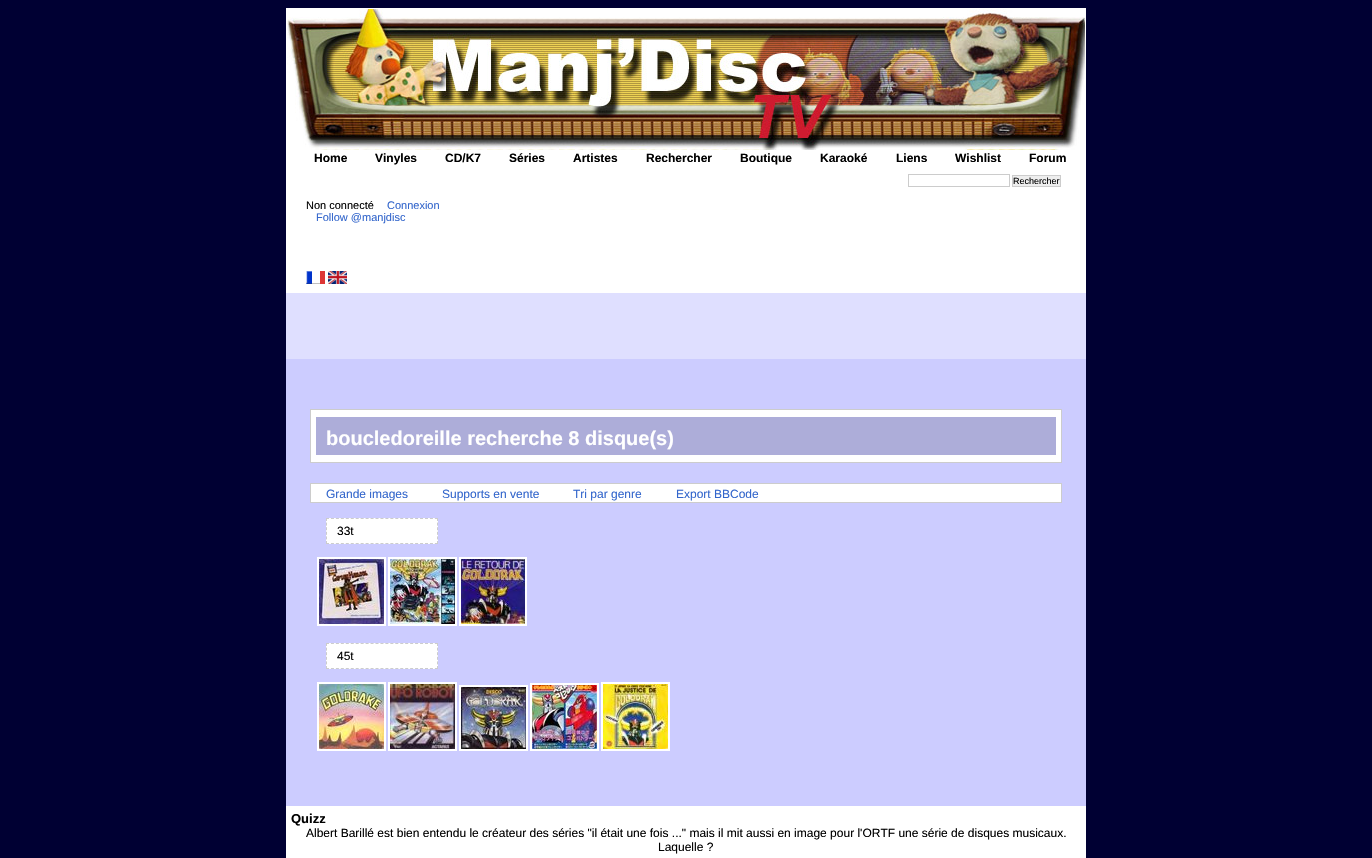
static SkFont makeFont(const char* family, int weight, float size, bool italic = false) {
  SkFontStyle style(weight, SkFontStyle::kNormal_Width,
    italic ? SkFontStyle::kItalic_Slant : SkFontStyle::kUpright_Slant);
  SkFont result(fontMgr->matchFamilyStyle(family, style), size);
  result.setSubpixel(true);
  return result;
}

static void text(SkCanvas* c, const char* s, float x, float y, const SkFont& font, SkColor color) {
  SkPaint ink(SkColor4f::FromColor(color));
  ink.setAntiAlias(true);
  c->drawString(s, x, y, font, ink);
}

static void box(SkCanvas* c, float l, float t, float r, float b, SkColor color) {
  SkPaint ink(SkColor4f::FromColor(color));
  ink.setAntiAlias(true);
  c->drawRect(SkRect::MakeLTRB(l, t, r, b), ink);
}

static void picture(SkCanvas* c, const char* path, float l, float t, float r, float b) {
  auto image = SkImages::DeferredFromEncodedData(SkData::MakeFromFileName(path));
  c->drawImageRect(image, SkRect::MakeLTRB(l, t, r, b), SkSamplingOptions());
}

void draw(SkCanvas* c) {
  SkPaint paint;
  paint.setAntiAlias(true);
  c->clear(0xff000033);
  box(c, 286, 293, 1086, 359, 0xffdfdfff);
  box(c, 286, 8, 1086, 293, 0xffffffff);
  picture(c, "img_01.png", 287, 9, 1085, 150);
  SkFont face1 = makeFont("Liberation Sans", 700, 12);
  text(c, "Home", 314, 162, face1, 0xff000000);
  text(c, "Vinyles", 375, 162, face1, 0xff000000);
  text(c, "CD/K7", 445, 162, face1, 0xff000000);
  text(c, "Séries", 509, 162, face1, 0xff000000);
  text(c, "Artistes", 573, 162, face1, 0xff000000);
  text(c, "Rechercher", 646, 162, face1, 0xff000000);
  text(c, "Boutique", 740, 162, face1, 0xff000000);
  text(c, "Karaoké", 820, 162, face1, 0xff000000);
  text(c, "Liens", 896, 162, face1, 0xff000000);
  text(c, "Wishlist", 955, 162, face1, 0xff000000);
  text(c, "Forum", 1029, 162, face1, 0xff000000);
  paint.setStyle(SkPaint::kStroke_Style);
  paint.setStrokeWidth(1);
  paint.setColor(0xffcccccc);
  c->drawRect(SkRect::MakeLTRB(908.5f, 174.5f, 1009.5f, 186.5f), paint);
  paint.setStyle(SkPaint::kFill_Style);
  paint.setColor(0xffeeeeee);
  c->drawRect(SkRect::MakeLTRB(1012.5f, 175.5f, 1060.5f, 186.5f), paint);
  paint.setStyle(SkPaint::kStroke_Style);
  paint.setColor(0xffcccccc);
  c->drawRect(SkRect::MakeLTRB(1012.5f, 175.5f, 1060.5f, 186.5f), paint);
  SkFont face2 = makeFont("Liberation Sans", 400, 9);
  text(c, "Rechercher", 1013, 184, face2, 0xff000000);
  SkFont face3 = makeFont("Liberation Sans", 400, 11);
  text(c, "Non connecté", 306, 209, face3, 0xff000000);
  text(c, "Connexion", 387, 209, face3, 0xff3366cc);
  text(c, "Follow @manjdisc", 316, 221, face3, 0xff3366cc);
  picture(c, "img_02.png", 306, 271, 325, 284);
  picture(c, "img_03.png", 328, 271, 347, 284);
  box(c, 286, 359, 1086, 806, 0xffccccff);
  paint.setStyle(SkPaint::kFill_Style);
  paint.setColor(0xffffffff);
  c->drawRect(SkRect::MakeLTRB(310.5f, 409.5f, 1061.5f, 462.5f), paint);
  paint.setStyle(SkPaint::kStroke_Style);
  paint.setColor(0xffcccccc);
  c->drawRect(SkRect::MakeLTRB(310.5f, 409.5f, 1061.5f, 462.5f), paint);
  box(c, 316, 417, 1056, 455, 0xffadadd9);
  SkFont face4 = makeFont("Liberation Sans", 700, 20);
  text(c, "boucledoreille recherche 8 disque(s)", 326, 445, face4, 0xffffffff);
  paint.setStyle(SkPaint::kFill_Style);
  paint.setColor(0xffffffff);
  c->drawRect(SkRect::MakeLTRB(310.5f, 483.5f, 1061.5f, 502.5f), paint);
  paint.setStyle(SkPaint::kStroke_Style);
  paint.setColor(0xffcccccc);
  c->drawRect(SkRect::MakeLTRB(310.5f, 483.5f, 1061.5f, 502.5f), paint);
  SkFont face5 = makeFont("Liberation Sans", 400, 12);
  text(c, "Grande images", 326, 498, face5, 0xff3366cc);
  text(c, "Supports en vente", 442, 498, face5, 0xff3366cc);
  text(c, "Tri par genre", 573, 498, face5, 0xff3366cc);
  text(c, "Export BBCode", 676, 498, face5, 0xff3366cc);
  box(c, 326, 518, 438, 544, 0xffffffff);
  paint.setPathEffect(SkDashPathEffect::Make({{3, 1.95f}}, 0));
  c->drawPath(SkPathBuilder().moveTo(326, 518.5f).lineTo(438, 518.5f).detach(), paint);
  paint.setPathEffect(nullptr);
  paint.setPathEffect(SkDashPathEffect::Make({{3, 1.6f}}, 0));
  c->drawPath(SkPathBuilder().moveTo(437.5f, 518).lineTo(437.5f, 544).detach(), paint);
  paint.setPathEffect(nullptr);
  paint.setPathEffect(SkDashPathEffect::Make({{3, 1.95f}}, 0));
  c->drawPath(SkPathBuilder().moveTo(326, 543.5f).lineTo(438, 543.5f).detach(), paint);
  paint.setPathEffect(nullptr);
  paint.setPathEffect(SkDashPathEffect::Make({{3, 1.6f}}, 0));
  c->drawPath(SkPathBuilder().moveTo(326.5f, 518).lineTo(326.5f, 544).detach(), paint);
  paint.setPathEffect(nullptr);
  text(c, "33t", 337, 535, face5, 0xff000000);
  paint.setStrokeWidth(2);
  paint.setColor(0xffffffff);
  c->drawRect(SkRect::MakeLTRB(318, 558, 385, 625), paint);
  c->drawRect(SkRect::MakeLTRB(389, 558, 456, 625), paint);
  c->drawRect(SkRect::MakeLTRB(460, 558, 526, 625), paint);
  picture(c, "img_04.png", 319, 559, 384, 624);
  picture(c, "img_05.png", 390, 559, 455, 624);
  picture(c, "img_06.png", 461, 559, 525, 624);
  box(c, 326, 643, 438, 669, 0xffffffff);
  paint.setStrokeWidth(1);
  paint.setColor(0xffcccccc);
  paint.setPathEffect(SkDashPathEffect::Make({{3, 1.95f}}, 0));
  c->drawPath(SkPathBuilder().moveTo(326, 643.5f).lineTo(438, 643.5f).detach(), paint);
  paint.setPathEffect(nullptr);
  paint.setPathEffect(SkDashPathEffect::Make({{3, 1.6f}}, 0));
  c->drawPath(SkPathBuilder().moveTo(437.5f, 643).lineTo(437.5f, 669).detach(), paint);
  paint.setPathEffect(nullptr);
  paint.setPathEffect(SkDashPathEffect::Make({{3, 1.95f}}, 0));
  c->drawPath(SkPathBuilder().moveTo(326, 668.5f).lineTo(438, 668.5f).detach(), paint);
  paint.setPathEffect(nullptr);
  paint.setPathEffect(SkDashPathEffect::Make({{3, 1.6f}}, 0));
  c->drawPath(SkPathBuilder().moveTo(326.5f, 643).lineTo(326.5f, 669).detach(), paint);
  paint.setPathEffect(nullptr);
  text(c, "45t", 337, 660, face5, 0xff000000);
  paint.setStrokeWidth(2);
  paint.setColor(0xffffffff);
  c->drawRect(SkRect::MakeLTRB(318, 683, 385, 750), paint);
  c->drawRect(SkRect::MakeLTRB(389, 683, 456, 750), paint);
  c->drawRect(SkRect::MakeLTRB(531, 684, 598, 750), paint);
  c->drawRect(SkRect::MakeLTRB(602, 683, 669, 750), paint);
  picture(c, "img_07.png", 319, 684, 384, 749);
  picture(c, "img_08.png", 390, 684, 455, 749);
  c->drawRect(SkRect::MakeLTRB(460, 686, 527, 750), paint);
  picture(c, "img_09.png", 532, 685, 597, 749);
  picture(c, "img_10.png", 603, 684, 668, 749);
  picture(c, "img_11.png", 461, 687, 526, 749);
  box(c, 286, 806, 1086, 858, 0xffffffff);
  SkFont face6 = makeFont("Liberation Sans", 700, 13);
  text(c, "Quizz", 291, 823, face6, 0xff000000);
  text(c, "Albert Barillé est bien entendu le créateur des séries \"il était une fois ...\" mais il mit aussi en image pour l'ORTF une série de disques musicaux.", 306, 837, face5, 0xff000000);
  text(c, "Laquelle ?", 658, 851, face5, 0xff000000);
}
